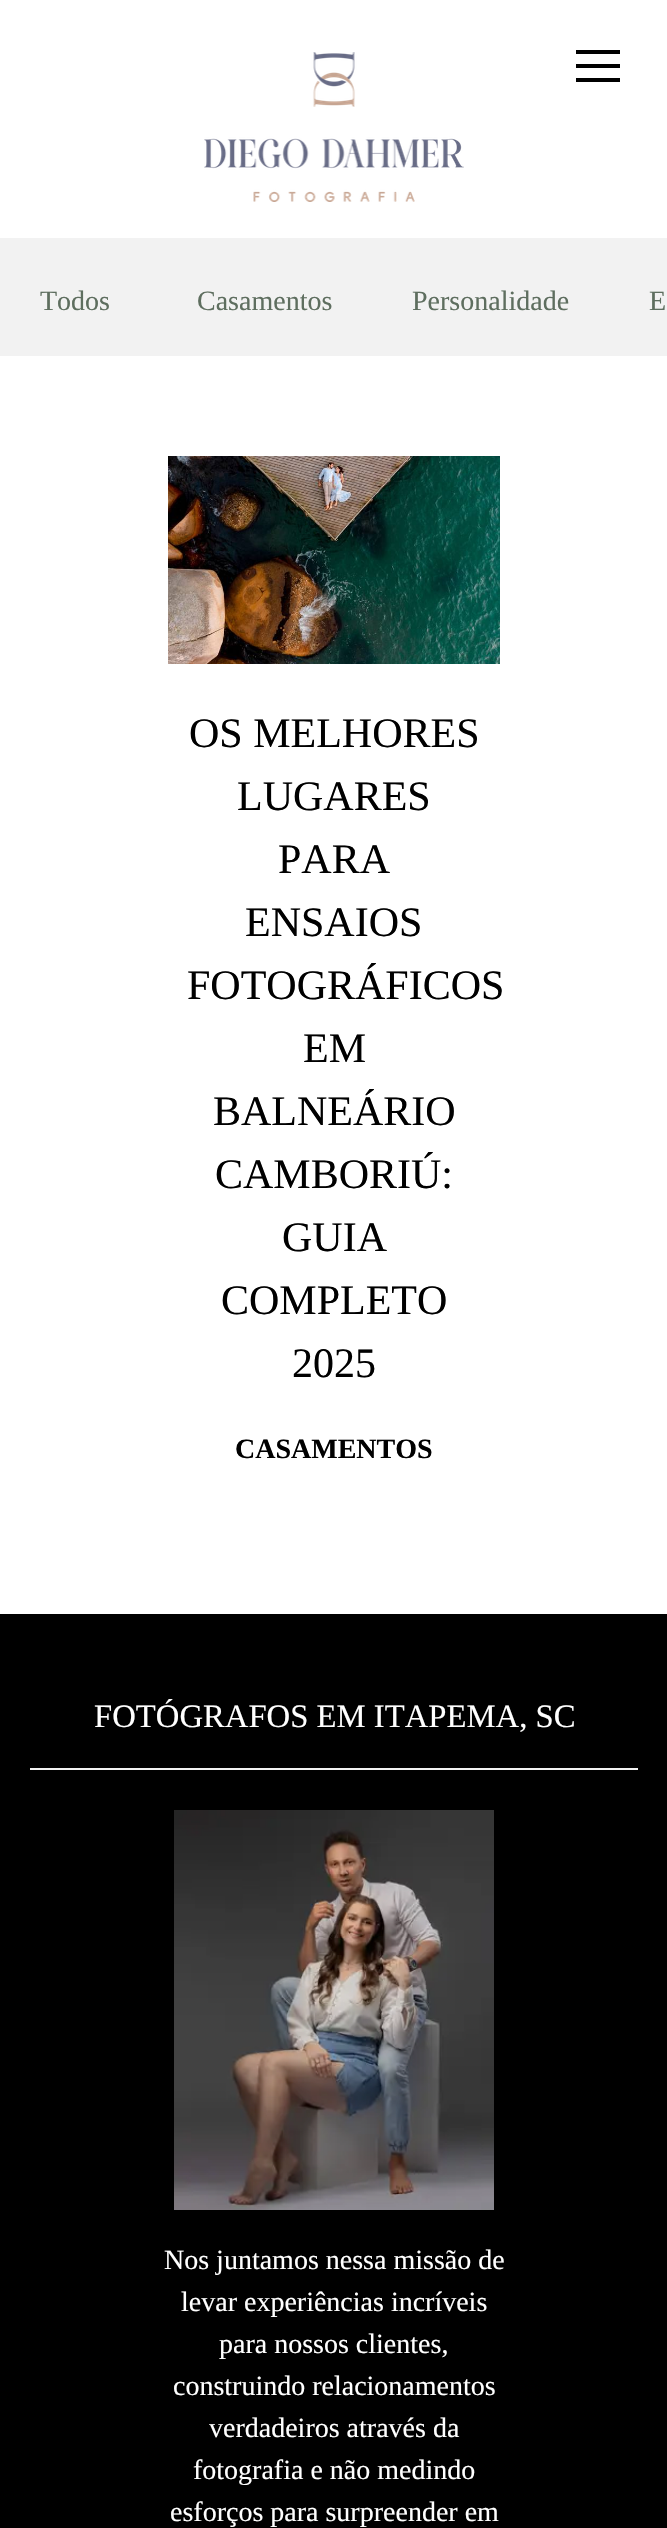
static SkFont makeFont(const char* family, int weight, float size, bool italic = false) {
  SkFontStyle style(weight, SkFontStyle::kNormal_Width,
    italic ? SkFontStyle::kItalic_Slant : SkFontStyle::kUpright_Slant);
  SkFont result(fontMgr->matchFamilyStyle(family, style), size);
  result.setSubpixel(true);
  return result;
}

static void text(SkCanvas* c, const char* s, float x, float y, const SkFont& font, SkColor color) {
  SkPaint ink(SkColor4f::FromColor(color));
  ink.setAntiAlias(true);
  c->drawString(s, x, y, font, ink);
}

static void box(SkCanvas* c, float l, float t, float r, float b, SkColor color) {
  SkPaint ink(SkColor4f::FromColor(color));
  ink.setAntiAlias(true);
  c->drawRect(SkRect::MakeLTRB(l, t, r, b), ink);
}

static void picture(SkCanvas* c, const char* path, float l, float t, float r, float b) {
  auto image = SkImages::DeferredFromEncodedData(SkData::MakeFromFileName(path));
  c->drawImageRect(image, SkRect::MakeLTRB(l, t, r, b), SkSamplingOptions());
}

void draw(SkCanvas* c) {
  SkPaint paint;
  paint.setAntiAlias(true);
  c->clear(0xffffffff);
  picture(c, "img_01.png", 204, 52, 464, 202);
  box(c, 576, 50, 620, 54, 0xff000000);
  box(c, 576, 64, 620, 68, 0xff000000);
  box(c, 576, 78, 620, 82, 0xff000000);
  box(c, 0, 238, 667, 356, 0xfff2f2f2);
  SkFont face1 = makeFont("Liberation Serif", 400, 28);
  text(c, "Todos", 40, 310, face1, 0xff5e6e5f);
  text(c, "Casamentos", 197, 310, face1, 0xff5e6e5f);
  text(c, "Personalidade", 412, 310, face1, 0xff5e6e5f);
  text(c, "E", 649, 310, face1, 0xff5e6e5f);
  picture(c, "img_02.png", 168, 456, 500, 664);
  SkFont face2 = makeFont("Liberation Serif", 400, 42);
  text(c, "OS MELHORES", 189, 747, face2, 0xff000000);
  text(c, "LUGARES", 237, 810, face2, 0xff000000);
  text(c, "PARA", 278, 873, face2, 0xff000000);
  text(c, "ENSAIOS", 245, 936, face2, 0xff000000);
  text(c, "FOTOGRÁFICOS", 187, 999, face2, 0xff000000);
  text(c, "EM", 303, 1062, face2, 0xff000000);
  text(c, "BALNEÁRIO", 213, 1125, face2, 0xff000000);
  text(c, "CAMBORIÚ:", 215, 1188, face2, 0xff000000);
  text(c, "GUIA", 282, 1251, face2, 0xff000000);
  text(c, "COMPLETO", 221, 1314, face2, 0xff000000);
  text(c, "2025", 292, 1377, face2, 0xff000000);
  SkFont face3 = makeFont("Liberation Serif", 700, 28);
  text(c, "CASAMENTOS", 235, 1458, face3, 0xff000000);
  box(c, 0, 1614, 667, 2528, 0xff000000);
  SkFont face4 = makeFont("Liberation Serif", 400, 32.7f);
  text(c, "FOTÓGRAFOS EM ITAPEMA, SC", 94, 1727, face4, 0xffffffff);
  box(c, 30, 1768, 638, 1770, 0xfff2f2f2);
  picture(c, "img_03.png", 174, 1810, 494, 2210);
  text(c, "Nos juntamos nessa missão de", 164, 2269, face1, 0xffffffff);
  text(c, "levar experiências incríveis", 181, 2311, face1, 0xffffffff);
  text(c, "para nossos clientes,", 219, 2353, face1, 0xffffffff);
  text(c, "construindo relacionamentos", 173, 2395, face1, 0xffffffff);
  text(c, "verdadeiros através da", 209, 2437, face1, 0xffffffff);
  text(c, "fotografia e não medindo", 193, 2479, face1, 0xffffffff);
  text(c, "esforços para surpreender em", 170, 2521, face1, 0xffffffff);
}
